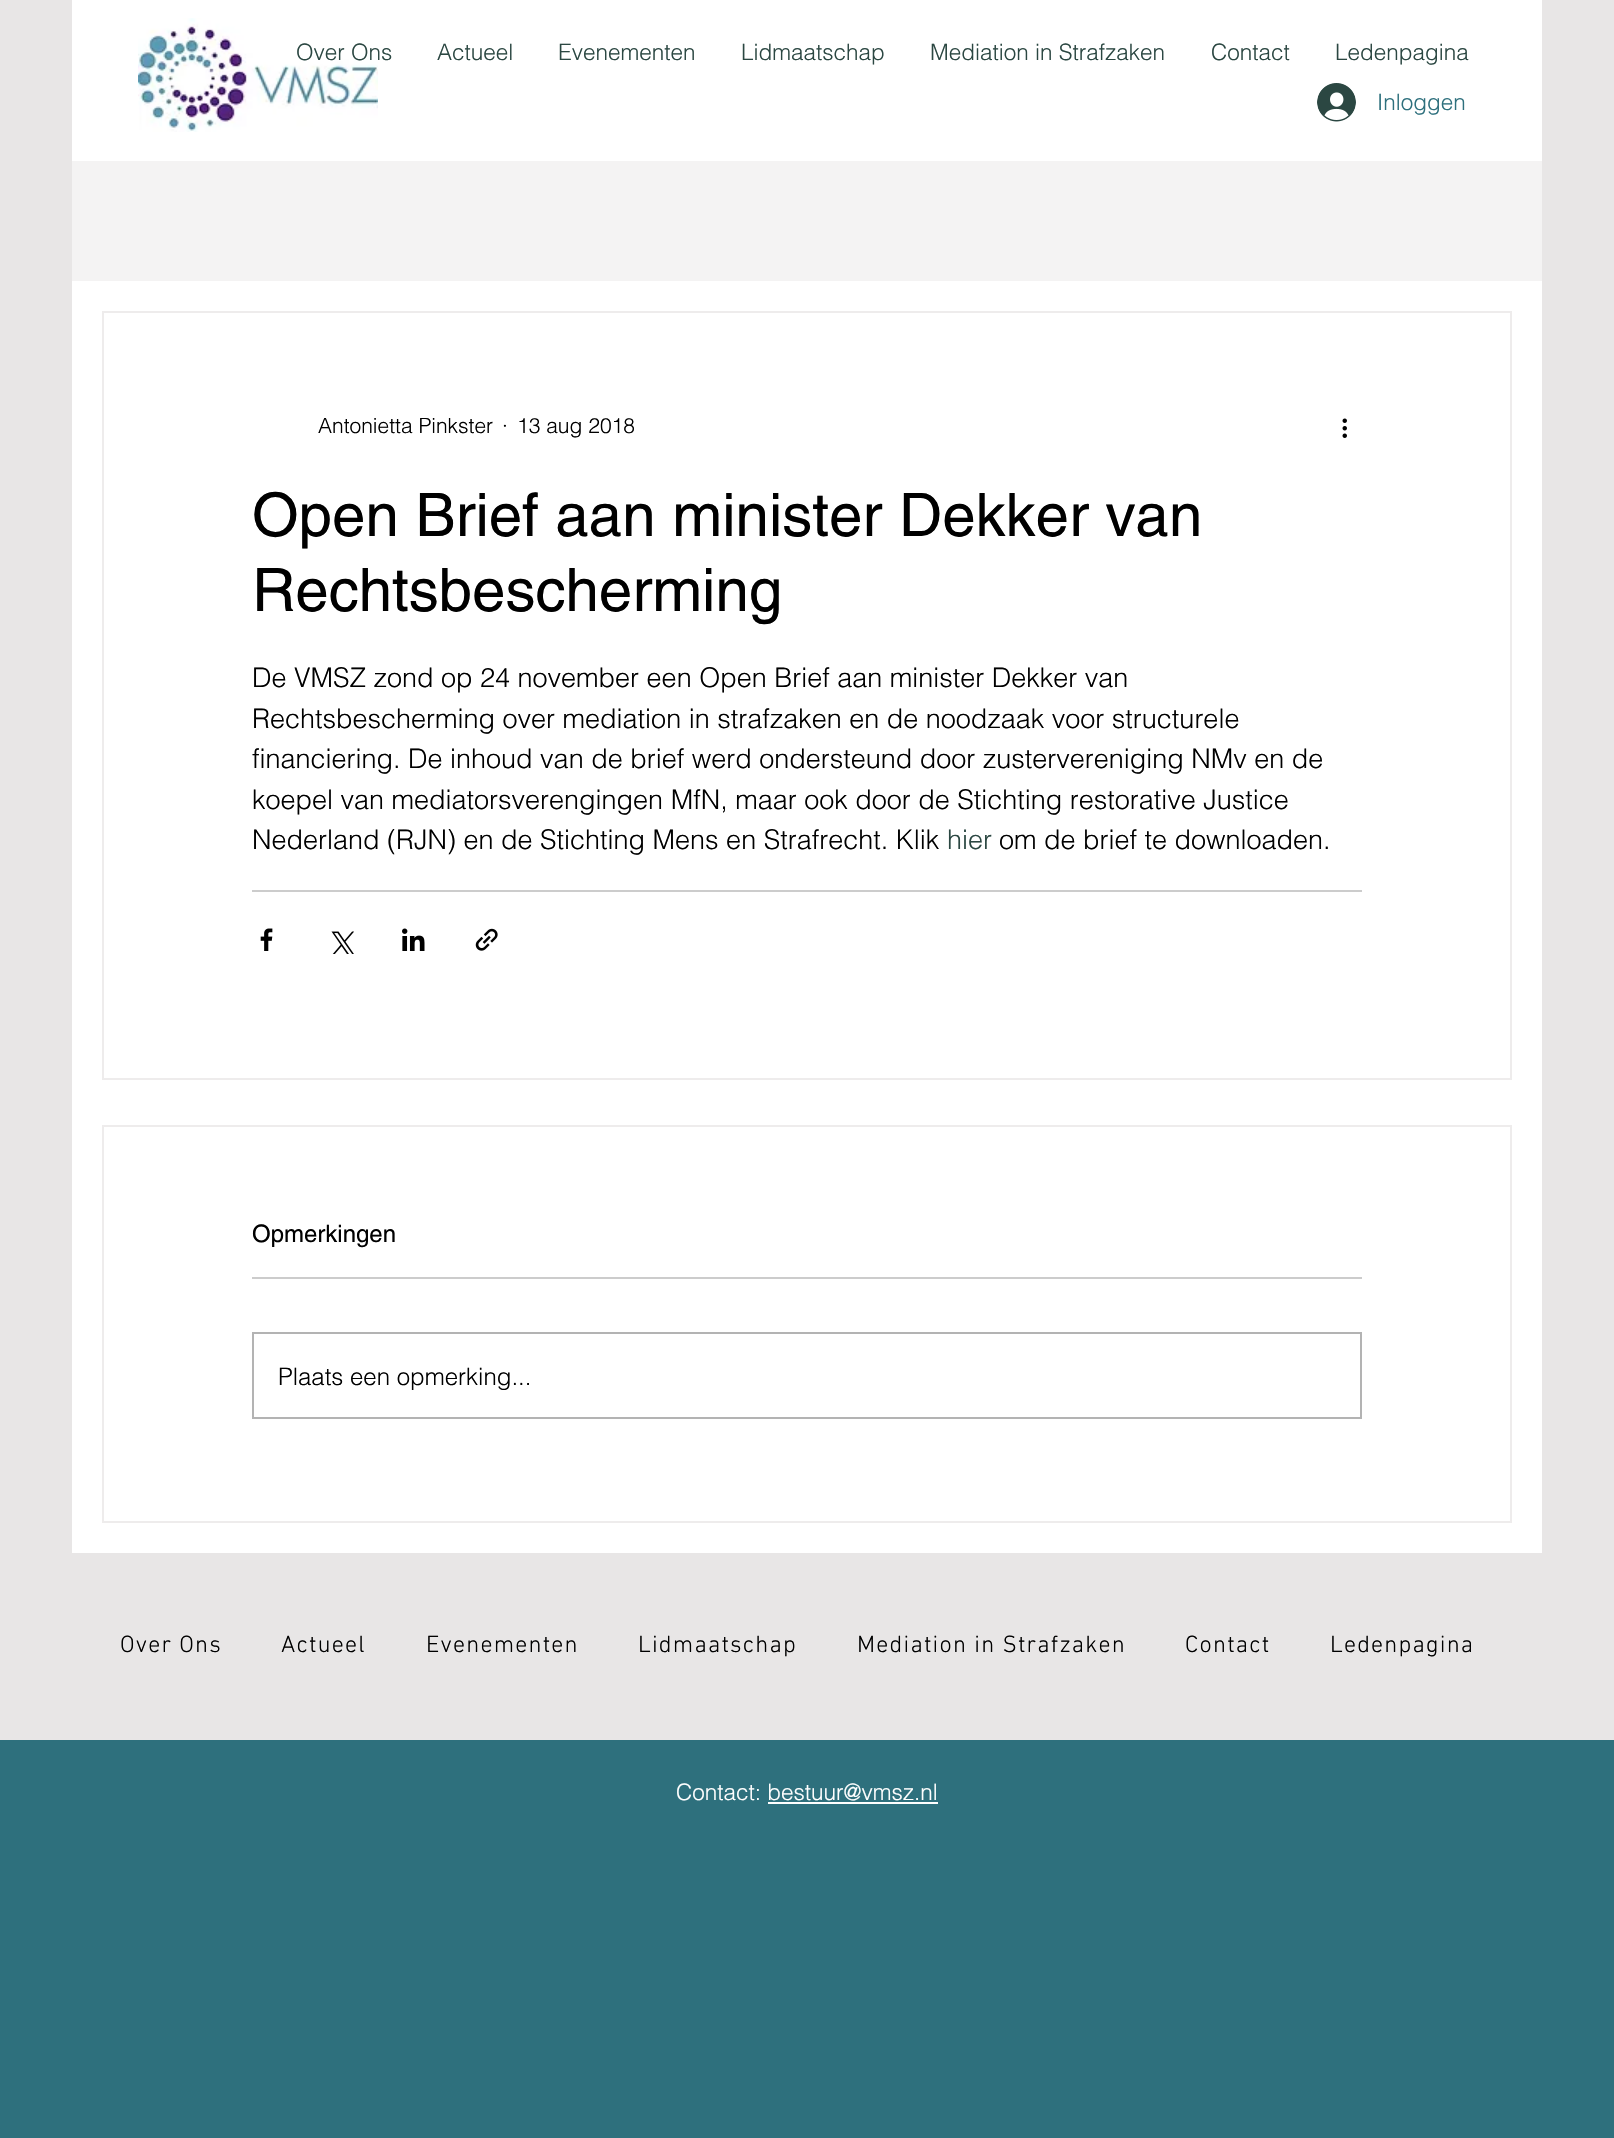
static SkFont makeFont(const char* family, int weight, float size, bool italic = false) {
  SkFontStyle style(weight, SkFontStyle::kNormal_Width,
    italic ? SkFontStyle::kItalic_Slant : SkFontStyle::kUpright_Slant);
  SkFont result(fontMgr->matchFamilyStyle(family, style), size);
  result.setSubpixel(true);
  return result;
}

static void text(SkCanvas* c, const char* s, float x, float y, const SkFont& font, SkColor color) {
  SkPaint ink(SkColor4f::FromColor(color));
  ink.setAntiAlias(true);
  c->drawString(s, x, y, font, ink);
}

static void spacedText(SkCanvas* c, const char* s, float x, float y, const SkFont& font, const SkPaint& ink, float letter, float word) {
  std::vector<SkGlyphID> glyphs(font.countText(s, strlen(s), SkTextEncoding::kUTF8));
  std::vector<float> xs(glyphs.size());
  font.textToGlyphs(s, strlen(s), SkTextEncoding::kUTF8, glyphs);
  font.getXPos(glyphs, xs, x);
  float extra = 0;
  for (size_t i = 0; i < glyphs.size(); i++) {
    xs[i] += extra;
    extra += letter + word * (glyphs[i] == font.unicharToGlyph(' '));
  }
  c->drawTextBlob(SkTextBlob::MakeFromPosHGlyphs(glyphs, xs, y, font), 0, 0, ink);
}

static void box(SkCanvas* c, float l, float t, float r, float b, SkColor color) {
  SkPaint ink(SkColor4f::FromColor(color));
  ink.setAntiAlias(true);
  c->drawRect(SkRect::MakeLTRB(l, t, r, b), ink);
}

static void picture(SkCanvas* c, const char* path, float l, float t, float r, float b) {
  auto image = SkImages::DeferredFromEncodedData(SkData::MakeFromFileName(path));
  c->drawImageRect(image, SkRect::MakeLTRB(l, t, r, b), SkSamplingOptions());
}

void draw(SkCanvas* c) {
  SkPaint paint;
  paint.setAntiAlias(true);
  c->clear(0xffe8e6e6);
  box(c, 72, 0, 1542, 161, 0xffffffff);
  picture(c, "img_01.png", 138, 18, 378, 132);
  SkFont face1 = makeFont("helvetica", 300, 22.5f);
  text(c, "Over Ons", 296, 60, face1, 0xff2b4742);
  text(c, "Actueel", 437, 60, face1, 0xff2b4742);
  text(c, "Evenementen", 558, 60, face1, 0xff2b4742);
  text(c, "Lidmaatschap", 741, 60, face1, 0xff2b4742);
  text(c, "Mediation in Strafzaken", 930, 60, face1, 0xff2b4742);
  text(c, "Contact", 1211, 60, face1, 0xff2b4742);
  text(c, "Ledenpagina", 1335, 60, face1, 0xff2b4742);
  picture(c, "img_02.png", 1317, 83, 1356, 122);
  text(c, "Inloggen", 1377, 110, face1, 0xff2e707d);
  box(c, 72, 281, 1542, 1553, 0xffffffff);
  box(c, 72, 161, 1542, 281, 0xfff4f3f3);
  paint.setStyle(SkPaint::kStroke_Style);
  paint.setStrokeWidth(2);
  paint.setColor(0xffeeecec);
  c->drawRect(SkRect::MakeLTRB(103, 312, 1511, 1079), paint);
  SkFont face2 = makeFont("helvetica", 300, 21);
  text(c, "Antonietta Pinkster", 318, 433, face2, 0xff000000);
  text(c, "·", 502, 433, face2, 0xff000000);
  text(c, "13 aug 2018", 517, 433, face2, 0xff000000);
  picture(c, "img_03.png", 1342, 418, 1347, 438);
  SkFont face3 = makeFont("helvetica", 400, 60);
  text(c, "Open Brief aan minister Dekker van", 252, 536, face3, 0xff000000);
  text(c, "Rechtsbescherming", 252, 611, face3, 0xff000000);
  SkFont face4 = makeFont("helvetica", 300, 27);
  text(c, "De VMSZ zond op 24 november een Open Brief aan minister Dekker van", 252, 687, face4, 0xff000000);
  text(c, "Rechtsbescherming over mediation in strafzaken en de noodzaak voor structurele", 252, 728, face4, 0xff000000);
  text(c, "financiering. De inhoud van de brief werd ondersteund door zustervereniging NMv en de", 252, 768, face4, 0xff000000);
  text(c, "koepel van mediatorsverengingen MfN, maar ook door de Stichting restorative Justice", 252, 809, face4, 0xff000000);
  text(c, "Nederland (RJN) en de Stichting Mens en Strafrecht. Klik", 252, 849, face4, 0xff000000);
  text(c, "hier", 947, 849, face4, 0xff2b4742);
  text(c, "om de brief te downloaden.", 999, 849, face4, 0xff000000);
  box(c, 252, 890, 1362, 892, 0xffcccccc);
  picture(c, "img_04.png", 260, 928, 273, 951);
  picture(c, "img_05.png", 331, 931, 354, 954);
  picture(c, "img_06.png", 402, 928, 425, 951);
  picture(c, "img_07.png", 475, 928, 498, 951);
  c->drawRect(SkRect::MakeLTRB(103, 1126, 1511, 1522), paint);
  SkFont face5 = makeFont("helvetica", 400, 24);
  text(c, "Opmerkingen", 252, 1242, face5, 0xff000000);
  box(c, 252, 1277, 1362, 1279, 0xffcccccc);
  paint.setColor(0xffb3b3b3);
  c->drawRect(SkRect::MakeLTRB(253, 1333, 1361, 1418), paint);
  SkFont face6 = makeFont("helvetica", 300, 24);
  text(c, "Plaats een opmerking...", 278, 1385, face6, 0xff000000);
  SkFont face7 = makeFont("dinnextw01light", 300, 24);
  paint.setStyle(SkPaint::kFill_Style);
  paint.setColor(0xff000000);
  spacedText(c, "Over Ons", 120, 1652, face7, paint, 1.2f, 0);
  spacedText(c, "Actueel", 281, 1652, face7, paint, 1.2f, 0);
  spacedText(c, "Evenementen", 426, 1652, face7, paint, 1.2f, 0);
  spacedText(c, "Lidmaatschap", 638, 1652, face7, paint, 1.2f, 0);
  spacedText(c, "Mediation in Strafzaken", 857, 1652, face7, paint, 1.2f, 0);
  spacedText(c, "Contact", 1185, 1652, face7, paint, 1.2f, 0);
  spacedText(c, "Ledenpagina", 1330, 1652, face7, paint, 1.2f, 0);
  box(c, 0, 1740, 1614, 2138, 0xff2e707d);
  text(c, "Contact: bestuur@vmsz.nl", 676, 1800, face1, 0xffffffff);
  box(c, 768, 1802, 938, 1804, 0xffffffff);
}
